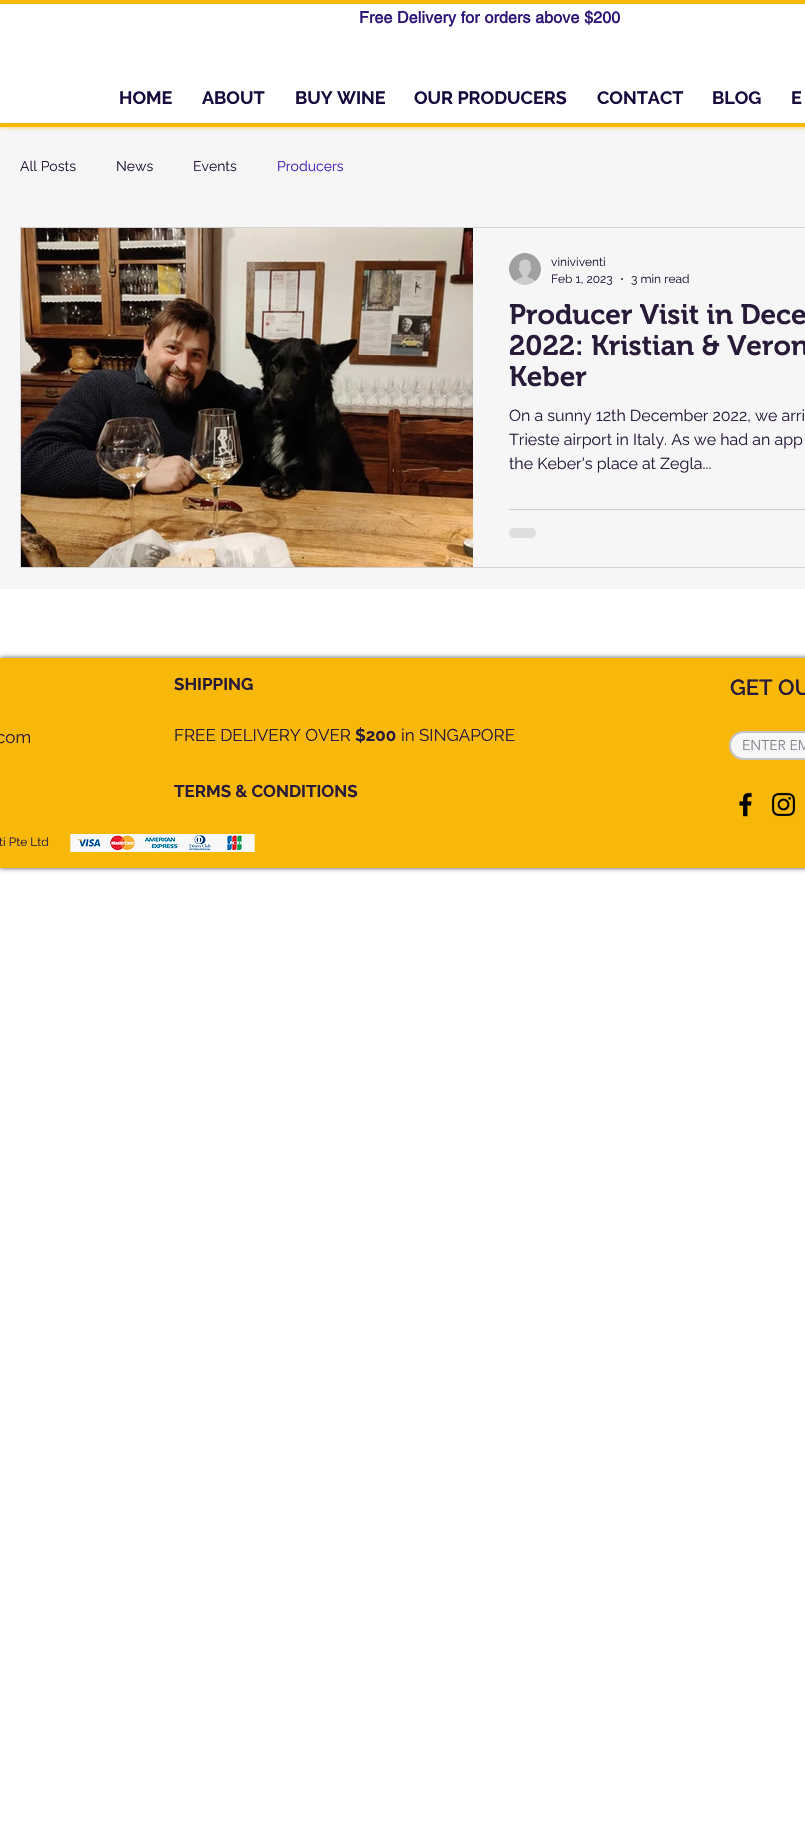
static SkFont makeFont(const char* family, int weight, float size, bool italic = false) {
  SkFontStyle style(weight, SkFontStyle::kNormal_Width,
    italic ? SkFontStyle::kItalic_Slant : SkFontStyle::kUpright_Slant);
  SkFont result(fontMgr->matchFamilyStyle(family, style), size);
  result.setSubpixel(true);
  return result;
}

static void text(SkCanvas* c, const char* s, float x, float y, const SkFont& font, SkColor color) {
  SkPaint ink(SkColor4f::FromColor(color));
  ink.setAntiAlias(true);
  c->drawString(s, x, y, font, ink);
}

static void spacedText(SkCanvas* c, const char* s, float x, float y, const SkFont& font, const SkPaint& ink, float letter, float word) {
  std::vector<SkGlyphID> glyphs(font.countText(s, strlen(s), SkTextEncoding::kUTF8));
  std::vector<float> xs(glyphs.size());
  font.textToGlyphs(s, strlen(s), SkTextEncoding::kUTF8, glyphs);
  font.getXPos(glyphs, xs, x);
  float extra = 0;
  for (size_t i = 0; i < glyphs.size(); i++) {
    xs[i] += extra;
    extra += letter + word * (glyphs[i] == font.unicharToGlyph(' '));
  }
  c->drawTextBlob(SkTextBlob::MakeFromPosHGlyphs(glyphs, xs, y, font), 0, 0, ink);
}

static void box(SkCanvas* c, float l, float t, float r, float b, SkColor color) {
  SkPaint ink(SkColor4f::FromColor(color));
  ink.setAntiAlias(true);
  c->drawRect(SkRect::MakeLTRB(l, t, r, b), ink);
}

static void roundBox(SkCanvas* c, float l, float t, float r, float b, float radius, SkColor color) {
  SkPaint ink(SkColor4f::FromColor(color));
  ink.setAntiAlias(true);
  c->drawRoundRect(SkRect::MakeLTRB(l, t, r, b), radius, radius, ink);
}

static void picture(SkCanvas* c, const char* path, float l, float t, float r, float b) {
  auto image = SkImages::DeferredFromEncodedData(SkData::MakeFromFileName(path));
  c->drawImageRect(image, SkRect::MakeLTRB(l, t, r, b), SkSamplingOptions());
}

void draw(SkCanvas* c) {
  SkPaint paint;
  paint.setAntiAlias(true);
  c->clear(0xffffffff);
  box(c, 0, 127, 805, 589, 0xfff6f6f6);
  c->save();
  c->clipRect(SkRect::MakeLTRB(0, 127, 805, 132));
  paint.setColor(0xb3f7b809);
  paint.setMaskFilter(SkMaskFilter::MakeBlur(kNormal_SkBlurStyle, 2.5f));
  c->drawRect(SkRect::MakeLTRB(0, 0, 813, 127), paint);
  paint.setMaskFilter(nullptr);
  c->restore();
  box(c, 0, 0, 805, 4, 0xfff7b809);
  box(c, 0, 123, 805, 127, 0xfff7b809);
  SkFont face1 = makeFont("helvetica", 700, 16);
  paint.setColor(0xff2f157a);
  spacedText(c, "Free Delivery for orders above $200", 359, 23, face1, paint, 0.15f, 0);
  SkFont face2 = makeFont("Raleway", 700, 18);
  text(c, "HOME", 119, 104, face2, 0xff180b3d);
  text(c, "ABOUT", 202, 104, face2, 0xff180b3d);
  text(c, "BUY WINE", 295, 104, face2, 0xff180b3d);
  text(c, "OUR PRODUCERS", 414, 104, face2, 0xff180b3d);
  text(c, "CONTACT", 597, 104, face2, 0xff180b3d);
  text(c, "BLOG", 712, 104, face2, 0xff180b3d);
  text(c, "E", 791, 104, face2, 0xff180b3d);
  SkFont face3 = makeFont("Raleway", 400, 14);
  text(c, "All Posts", 20, 171, face3, 0xff281a39);
  text(c, "News", 116, 171, face3, 0xff281a39);
  text(c, "Events", 193, 171, face3, 0xff281a39);
  text(c, "Producers", 277, 171, face3, 0xff4720b7);
  paint.setStyle(SkPaint::kStroke_Style);
  paint.setStrokeWidth(1);
  paint.setColor(0xffd1d1d1);
  c->drawRect(SkRect::MakeLTRB(20.5f, 227.5f, 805.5f, 567.5f), paint);
  picture(c, "img_01.png", 21, 228, 473, 567);
  picture(c, "img_02.png", 509, 253, 541, 285);
  SkFont face4 = makeFont("Raleway", 400, 12);
  text(c, "viniviventi", 551, 266, face4, 0xff281a39);
  text(c, "Feb 1, 2023", 551, 283, face4, 0xff281a39);
  paint.setStyle(SkPaint::kFill_Style);
  paint.setColor(0xff281a39);
  c->drawCircle(622, 279, 1, paint);
  text(c, "3 min read", 631, 283, face4, 0xff281a39);
  SkFont face5 = makeFont("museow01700", 600, 28);
  text(c, "Producer Visit in Dece", 509, 324, face5, 0xff281a39);
  text(c, "2022: Kristian & Veron", 509, 355, face5, 0xff281a39);
  text(c, "Keber", 509, 386, face5, 0xff281a39);
  SkFont face6 = makeFont("Raleway", 400, 16);
  text(c, "On a sunny 12th December 2022, we arri", 509, 421, face6, 0xff281a39);
  text(c, "Trieste airport in Italy. As we had an app", 509, 445, face6, 0xff281a39);
  text(c, "the Keber's place at Zegla...", 509, 469, face6, 0xff281a39);
  box(c, 509, 509, 805, 510, 0xffcdcad0);
  roundBox(c, 509, 528, 536, 538, 5, 0xffdddcdf);
  paint.setColor(0xb3000000);
  paint.setMaskFilter(SkMaskFilter::MakeBlur(kNormal_SkBlurStyle, 2.5f));
  c->drawRect(SkRect::MakeLTRB(0, 658, 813, 868), paint);
  paint.setMaskFilter(nullptr);
  box(c, 0, 658, 805, 868, 0xfff7b809);
  SkFont face7 = makeFont("Raleway", 700, 17);
  text(c, "SHIPPING", 174, 690, face7, 0xff281a39);
  SkFont face8 = makeFont("Raleway", 600, 22);
  text(c, "GET OU", 730, 695, face8, 0xff281a39);
  SkFont face9 = makeFont("Raleway", 400, 17);
  text(c, "com", -4, 743, face9, 0xff281a39);
  text(c, "FREE DELIVERY OVER", 174, 741, face9, 0xff281a39);
  text(c, "$200", 355, 741, face7, 0xff281a39);
  text(c, "in SINGAPORE", 401, 741, face9, 0xff281a39);
  roundBox(c, 729, 731, 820, 760, 14.5f, 0xfff6f6f6);
  paint.setStyle(SkPaint::kStroke_Style);
  paint.setStrokeWidth(2);
  paint.setColor(0x57626262);
  c->drawRoundRect(SkRect::MakeLTRB(730, 732, 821, 759), 13.5f, 13.5f, paint);
  SkFont face10 = makeFont("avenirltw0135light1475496", 300, 14);
  text(c, "ENTER EM", 742, 750, face10, 0xff7f808a);
  picture(c, "img_03.png", 739, 792, 752, 817);
  picture(c, "img_04.png", 771, 792, 796, 817);
  text(c, "TERMS & CONDITIONS", 174, 797, face7, 0xff281a39);
  text(c, "ti Pte Ltd", -1, 846, face4, 0xff281a39);
  picture(c, "img_05.png", 70, 834, 105, 852);
  picture(c, "img_07.png", 140, 834, 182, 852);
  picture(c, "img_06.png", 105, 834, 141, 852);
  picture(c, "img_08.png", 181, 834, 218, 852);
  picture(c, "img_09.png", 218, 834, 255, 852);
}
